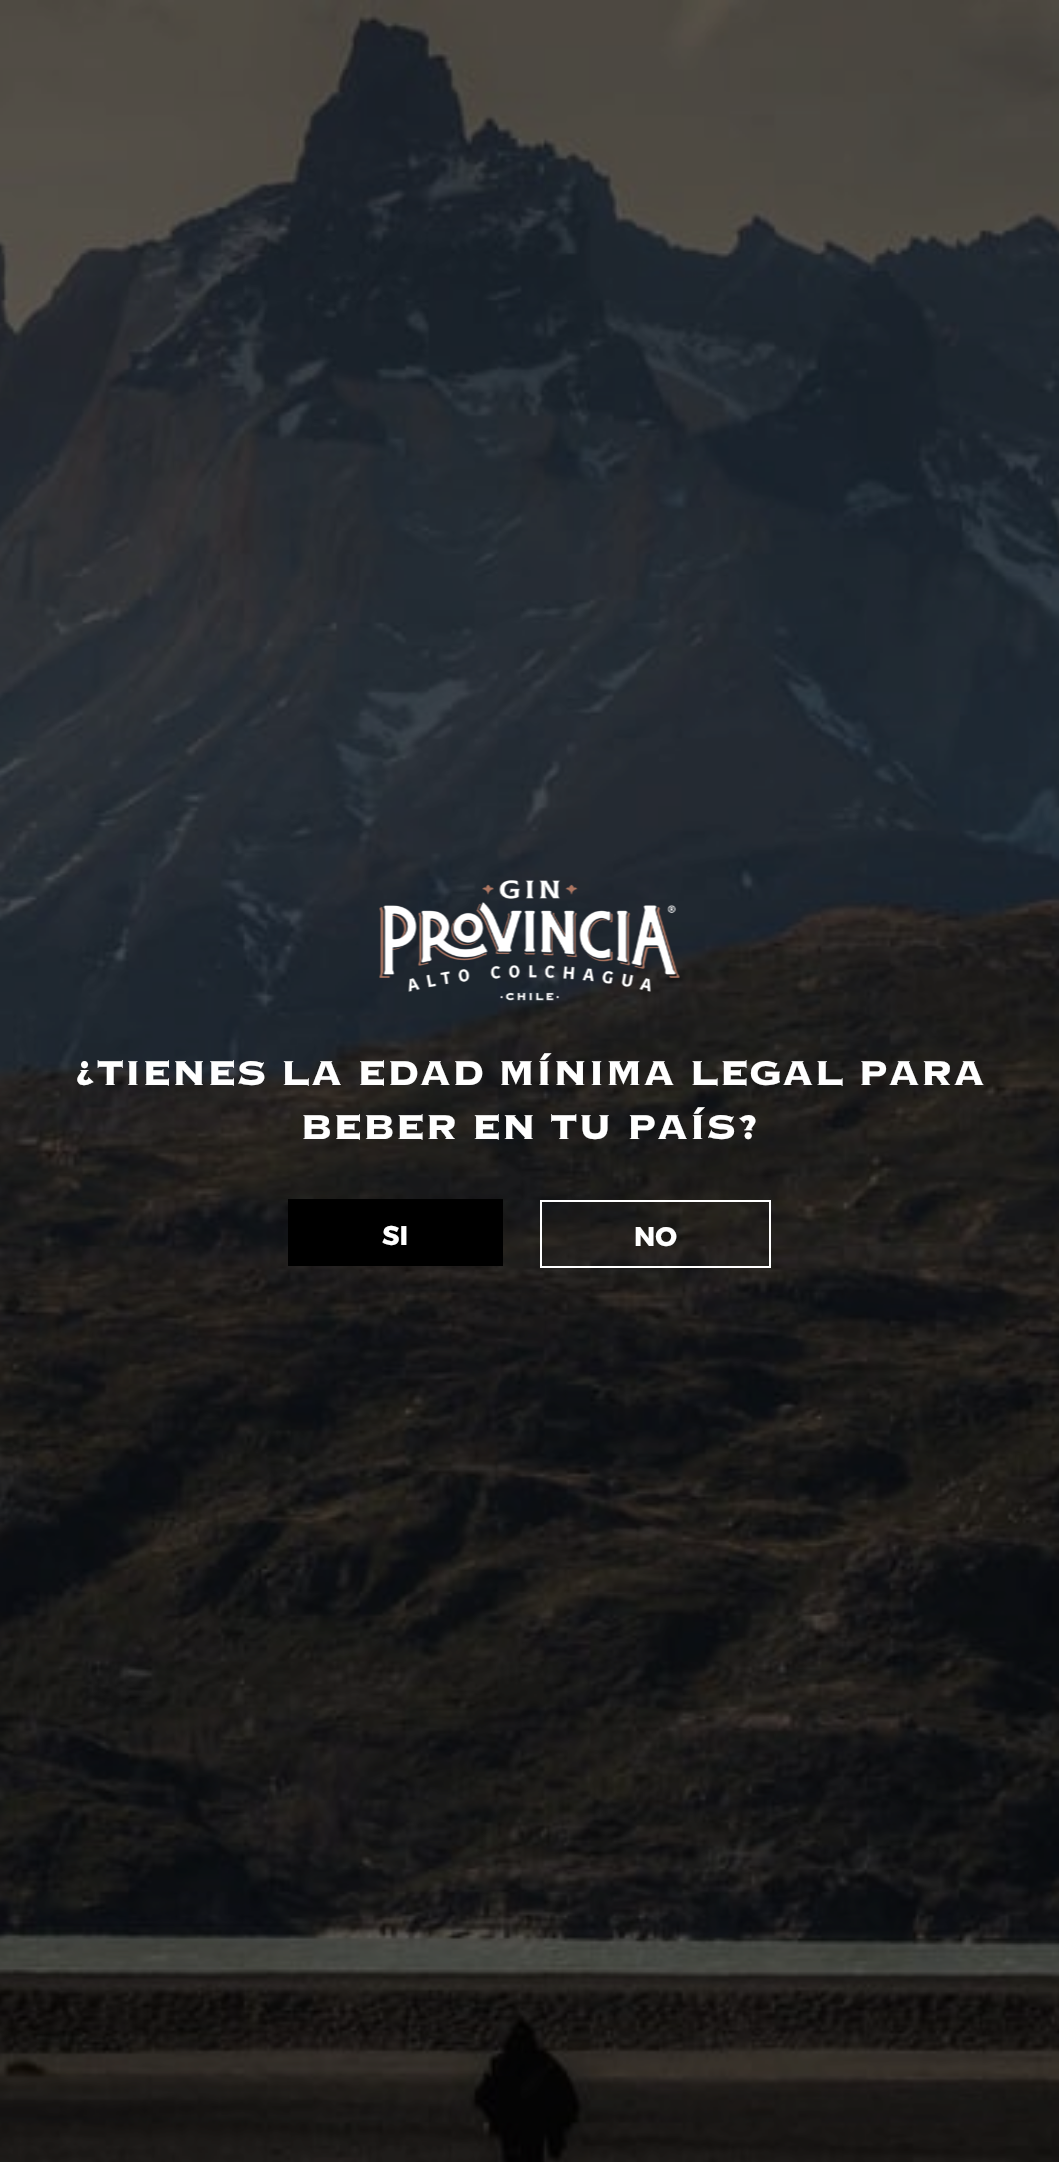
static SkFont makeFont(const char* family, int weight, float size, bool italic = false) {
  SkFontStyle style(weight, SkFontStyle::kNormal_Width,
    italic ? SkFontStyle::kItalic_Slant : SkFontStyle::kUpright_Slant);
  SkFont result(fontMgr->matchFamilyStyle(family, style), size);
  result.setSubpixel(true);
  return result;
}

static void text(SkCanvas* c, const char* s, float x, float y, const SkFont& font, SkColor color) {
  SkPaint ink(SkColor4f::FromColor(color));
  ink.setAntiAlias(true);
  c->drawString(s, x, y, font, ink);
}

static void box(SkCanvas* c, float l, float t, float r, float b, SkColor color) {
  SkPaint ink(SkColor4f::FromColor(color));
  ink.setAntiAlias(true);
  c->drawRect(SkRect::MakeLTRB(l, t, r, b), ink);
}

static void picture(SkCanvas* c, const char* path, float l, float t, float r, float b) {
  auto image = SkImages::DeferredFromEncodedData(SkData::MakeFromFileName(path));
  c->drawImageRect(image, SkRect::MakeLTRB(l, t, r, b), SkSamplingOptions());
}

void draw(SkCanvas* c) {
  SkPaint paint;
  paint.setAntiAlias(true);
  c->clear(0xffffffff);
  picture(c, "img_01.png", 0, 0, 1059, 2162);
  picture(c, "img_02.png", 379, 880, 680, 1001);
  SkFont face1 = makeFont("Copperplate", 700, 45);
  text(c, "¿TIENES LA EDAD MÍNIMA LEGAL PARA", 74, 1085, face1, 0xffffffff);
  text(c, "BEBER EN TU PAÍS?", 300, 1139, face1, 0xffffffff);
  box(c, 288, 1199, 503, 1266, 0xff000000);
  SkFont face2 = makeFont("Montserrat", 700, 27);
  text(c, "SI", 382, 1245, face2, 0xffffffff);
  paint.setStyle(SkPaint::kStroke_Style);
  paint.setStrokeWidth(2);
  paint.setColor(0xffffffff);
  c->drawRect(SkRect::MakeLTRB(541, 1201, 770, 1267), paint);
  text(c, "NO", 634, 1246, face2, 0xffffffff);
}
